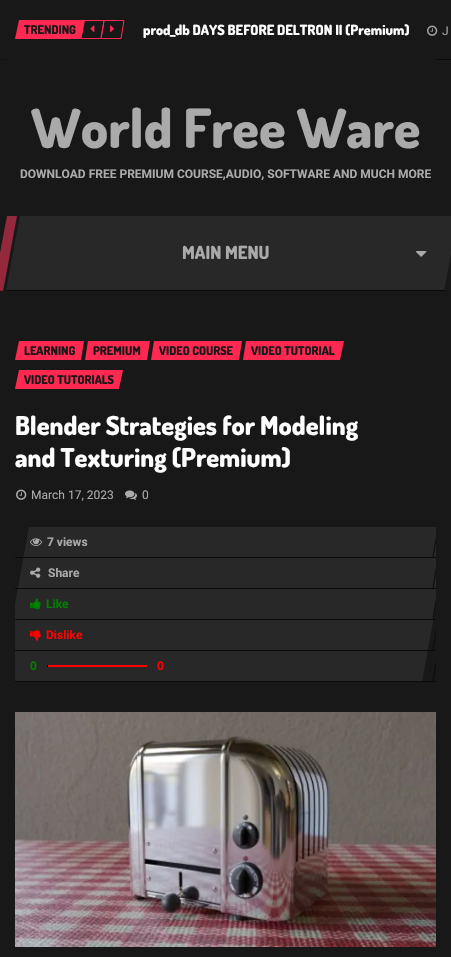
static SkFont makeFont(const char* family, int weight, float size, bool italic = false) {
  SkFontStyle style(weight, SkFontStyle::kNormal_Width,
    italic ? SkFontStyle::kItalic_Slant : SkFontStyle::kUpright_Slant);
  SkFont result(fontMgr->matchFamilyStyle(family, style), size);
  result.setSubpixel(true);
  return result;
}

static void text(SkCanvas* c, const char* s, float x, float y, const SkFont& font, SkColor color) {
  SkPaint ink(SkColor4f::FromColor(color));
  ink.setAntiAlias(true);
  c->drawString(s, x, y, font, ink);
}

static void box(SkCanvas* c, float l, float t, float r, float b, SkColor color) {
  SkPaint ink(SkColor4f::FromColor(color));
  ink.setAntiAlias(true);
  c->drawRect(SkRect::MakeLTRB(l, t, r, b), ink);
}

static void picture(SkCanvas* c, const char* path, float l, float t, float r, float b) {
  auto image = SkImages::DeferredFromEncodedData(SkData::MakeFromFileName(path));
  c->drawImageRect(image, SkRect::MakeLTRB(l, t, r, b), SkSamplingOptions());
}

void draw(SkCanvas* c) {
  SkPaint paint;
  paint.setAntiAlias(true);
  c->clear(0xff181818);
  box(c, 0, 59, 451, 60, 0xff0a0a0a);
  paint.setStyle(SkPaint::kStroke_Style);
  paint.setStrokeWidth(1);
  paint.setColor(0xffff2851);
  c->drawPath(SkPathBuilder().moveTo(84, 20.5f).lineTo(104, 20.5f).lineTo(101, 38.5f).lineTo(81, 38.5f).close().detach(), paint);
  paint.setStyle(SkPaint::kFill_Style);
  c->drawPath(SkPathBuilder().moveTo(19, 20).lineTo(85, 20).lineTo(81, 39).lineTo(15, 39).close().detach(), paint);
  SkFont face1 = makeFont("Dosis", 800, 12);
  text(c, "TRENDING", 24, 34, face1, 0xff181818);
  picture(c, "img_01.png", 90, 25, 95, 33);
  paint.setStyle(SkPaint::kStroke_Style);
  c->drawPath(SkPathBuilder().moveTo(104, 20.5f).lineTo(124, 20.5f).lineTo(121, 38.5f).lineTo(101, 38.5f).close().detach(), paint);
  picture(c, "img_02.png", 110, 25, 114, 33);
  SkFont face2 = makeFont("Dosis", 800, 14);
  text(c, "prod_db DAYS BEFORE DELTRON II (Premium)", 143, 35, face2, 0xffffffff);
  picture(c, "img_03.png", 427, 25, 438, 36);
  SkFont face3 = makeFont("Roboto", 400, 12);
  text(c, "J", 442, 35, face3, 0xffa1a1a1);
  box(c, 15, 59, 436, 60, 0xff181818);
  paint.setStyle(SkPaint::kFill_Style);
  {
    const SkColor colors[] = {0xff181818, 0x00181818};
    const float stops[] = {0, 1};
    const SkPoint ends[] = {{15, 66}, {-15, 66}};
    paint.setShader(SkGradientShader::MakeLinear(ends, colors, stops, 2, SkTileMode::kClamp));
    paint.setAlpha(255);
  }
  c->drawRect(SkRect::MakeLTRB(0, 59, 15, 60), paint);
  SkFont face4 = makeFont("Dosis", 800, 54);
  text(c, "World Free Ware", 31, 148, face4, 0xffaaaaaa);
  SkFont face5 = makeFont("Roboto", 700, 12);
  text(c, "DOWNLOAD FREE PREMIUM COURSE,AUDIO, SOFTWARE AND MUCH MORE", 20, 178, face5, 0xffaaaaaa);
  paint.setShader(nullptr);
  paint.setColor(0xff282828);
  c->drawPath(SkPathBuilder().moveTo(7, 216).lineTo(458, 216).lineTo(444, 291).lineTo(-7, 291).close().detach(), paint);
  paint.setColor(0xff0a0a0a);
  c->drawPath(SkPathBuilder().moveTo(-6, 290).lineTo(445, 290).lineTo(444, 291).lineTo(-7, 291).close().detach(), paint);
  paint.setColor(0xff181818);
  c->drawPath(SkPathBuilder().moveTo(3, 291).lineTo(6, 291).lineTo(20, 216).lineTo(17, 216).close().detach(), paint);
  paint.setColor(0x80ff2851);
  c->drawPath(SkPathBuilder().moveTo(7, 216).lineTo(17, 216).lineTo(3, 291).lineTo(-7, 291).close().detach(), paint);
  SkFont face6 = makeFont("Dosis", 800, 18);
  text(c, "MAIN MENU", 182, 259, face6, 0xffaaaaaa);
  picture(c, "img_04.png", 416, 251, 427, 257);
  paint.setColor(0xffff2851);
  c->drawPath(SkPathBuilder().moveTo(19, 341).lineTo(84, 341).lineTo(81, 360).lineTo(15, 360).close().detach(), paint);
  text(c, "LEARNING", 24, 355, face1, 0xff181818);
  c->drawPath(SkPathBuilder().moveTo(88, 341).lineTo(150, 341).lineTo(147, 360).lineTo(85, 360).close().detach(), paint);
  text(c, "PREMIUM", 93, 355, face1, 0xff181818);
  c->drawPath(SkPathBuilder().moveTo(154, 341).lineTo(242, 341).lineTo(239, 360).lineTo(151, 360).close().detach(), paint);
  text(c, "VIDEO COURSE", 159, 355, face1, 0xff181818);
  c->drawPath(SkPathBuilder().moveTo(246, 341).lineTo(344, 341).lineTo(340, 360).lineTo(243, 360).close().detach(), paint);
  text(c, "VIDEO TUTORIAL", 251, 355, face1, 0xff181818);
  c->drawPath(SkPathBuilder().moveTo(19, 370).lineTo(123, 370).lineTo(119, 389).lineTo(15, 389).close().detach(), paint);
  text(c, "VIDEO TUTORIALS", 24, 384, face1, 0xff181818);
  SkFont face7 = makeFont("Dosis", 800, 26);
  text(c, "Blender Strategies for Modeling", 15, 435, face7, 0xffffffff);
  text(c, "and Texturing (Premium)", 15, 467, face7, 0xffffffff);
  picture(c, "img_05.png", 16, 489, 27, 500);
  text(c, "March 17, 2023", 31, 499, face3, 0xffaaaaaa);
  picture(c, "img_06.png", 125, 490, 137, 500);
  text(c, "0", 142, 499, face3, 0xffaaaaaa);
  c->save();
  c->clipRect(SkRect::MakeLTRB(15, 527, 436, 682));
  paint.setColor(0xff282828);
  c->drawPath(SkPathBuilder().moveTo(29, 527).lineTo(450, 527).lineTo(422, 682).lineTo(1, 682).close().detach(), paint);
  c->restore();
  box(c, 15, 557, 436, 558, 0xff0a0a0a);
  picture(c, "img_07.png", 30, 538, 42, 546);
  text(c, "7 views", 47, 546, face5, 0xffaaaaaa);
  c->save();
  c->clipRect(SkRect::MakeLTRB(15, 527, 436, 682));
  paint.setColor(0xff0a0a0a);
  c->drawPath(SkPathBuilder().moveTo(437.5f, 527).lineTo(438.5f, 527).lineTo(433.5f, 557).lineTo(432.5f, 557).close().detach(), paint);
  c->restore();
  box(c, 15, 588, 436, 589, 0xff0a0a0a);
  picture(c, "img_08.png", 30, 567, 41, 578);
  text(c, "Share", 48, 577, face5, 0xffaaaaaa);
  c->save();
  c->clipRect(SkRect::MakeLTRB(15, 527, 436, 682));
  c->drawPath(SkPathBuilder().moveTo(437.5f, 558).lineTo(438.5f, 558).lineTo(433.5f, 588).lineTo(432.5f, 588).close().detach(), paint);
  c->restore();
  box(c, 15, 619, 436, 620, 0xff0a0a0a);
  picture(c, "img_09.png", 30, 598, 41, 609);
  text(c, "Like", 46, 608, face5, 0xff008000);
  c->save();
  c->clipRect(SkRect::MakeLTRB(15, 527, 436, 682));
  c->drawPath(SkPathBuilder().moveTo(437.5f, 589).lineTo(438.5f, 589).lineTo(433.5f, 619).lineTo(432.5f, 619).close().detach(), paint);
  c->restore();
  box(c, 15, 650, 436, 651, 0xff0a0a0a);
  picture(c, "img_10.png", 30, 630, 41, 641);
  text(c, "Dislike", 46, 639, face5, 0xffff0000);
  c->save();
  c->clipRect(SkRect::MakeLTRB(15, 527, 436, 682));
  c->drawPath(SkPathBuilder().moveTo(437.5f, 620).lineTo(438.5f, 620).lineTo(433.5f, 650).lineTo(432.5f, 650).close().detach(), paint);
  c->restore();
  box(c, 15, 681, 436, 682, 0xff0a0a0a);
  text(c, "0", 30, 670, face5, 0xff008000);
  box(c, 47, 665, 147, 667, 0xffff0000);
  box(c, 47, 665, 48, 667, 0xff0a0a0a);
  text(c, "0", 157, 670, face5, 0xffff0000);
  c->save();
  c->clipRect(SkRect::MakeLTRB(15, 527, 436, 682));
  c->drawPath(SkPathBuilder().moveTo(437.5f, 651).lineTo(438.5f, 651).lineTo(433.5f, 681).lineTo(432.5f, 681).close().detach(), paint);
  c->restore();
  picture(c, "img_11.png", 15, 712, 436, 947);
}
